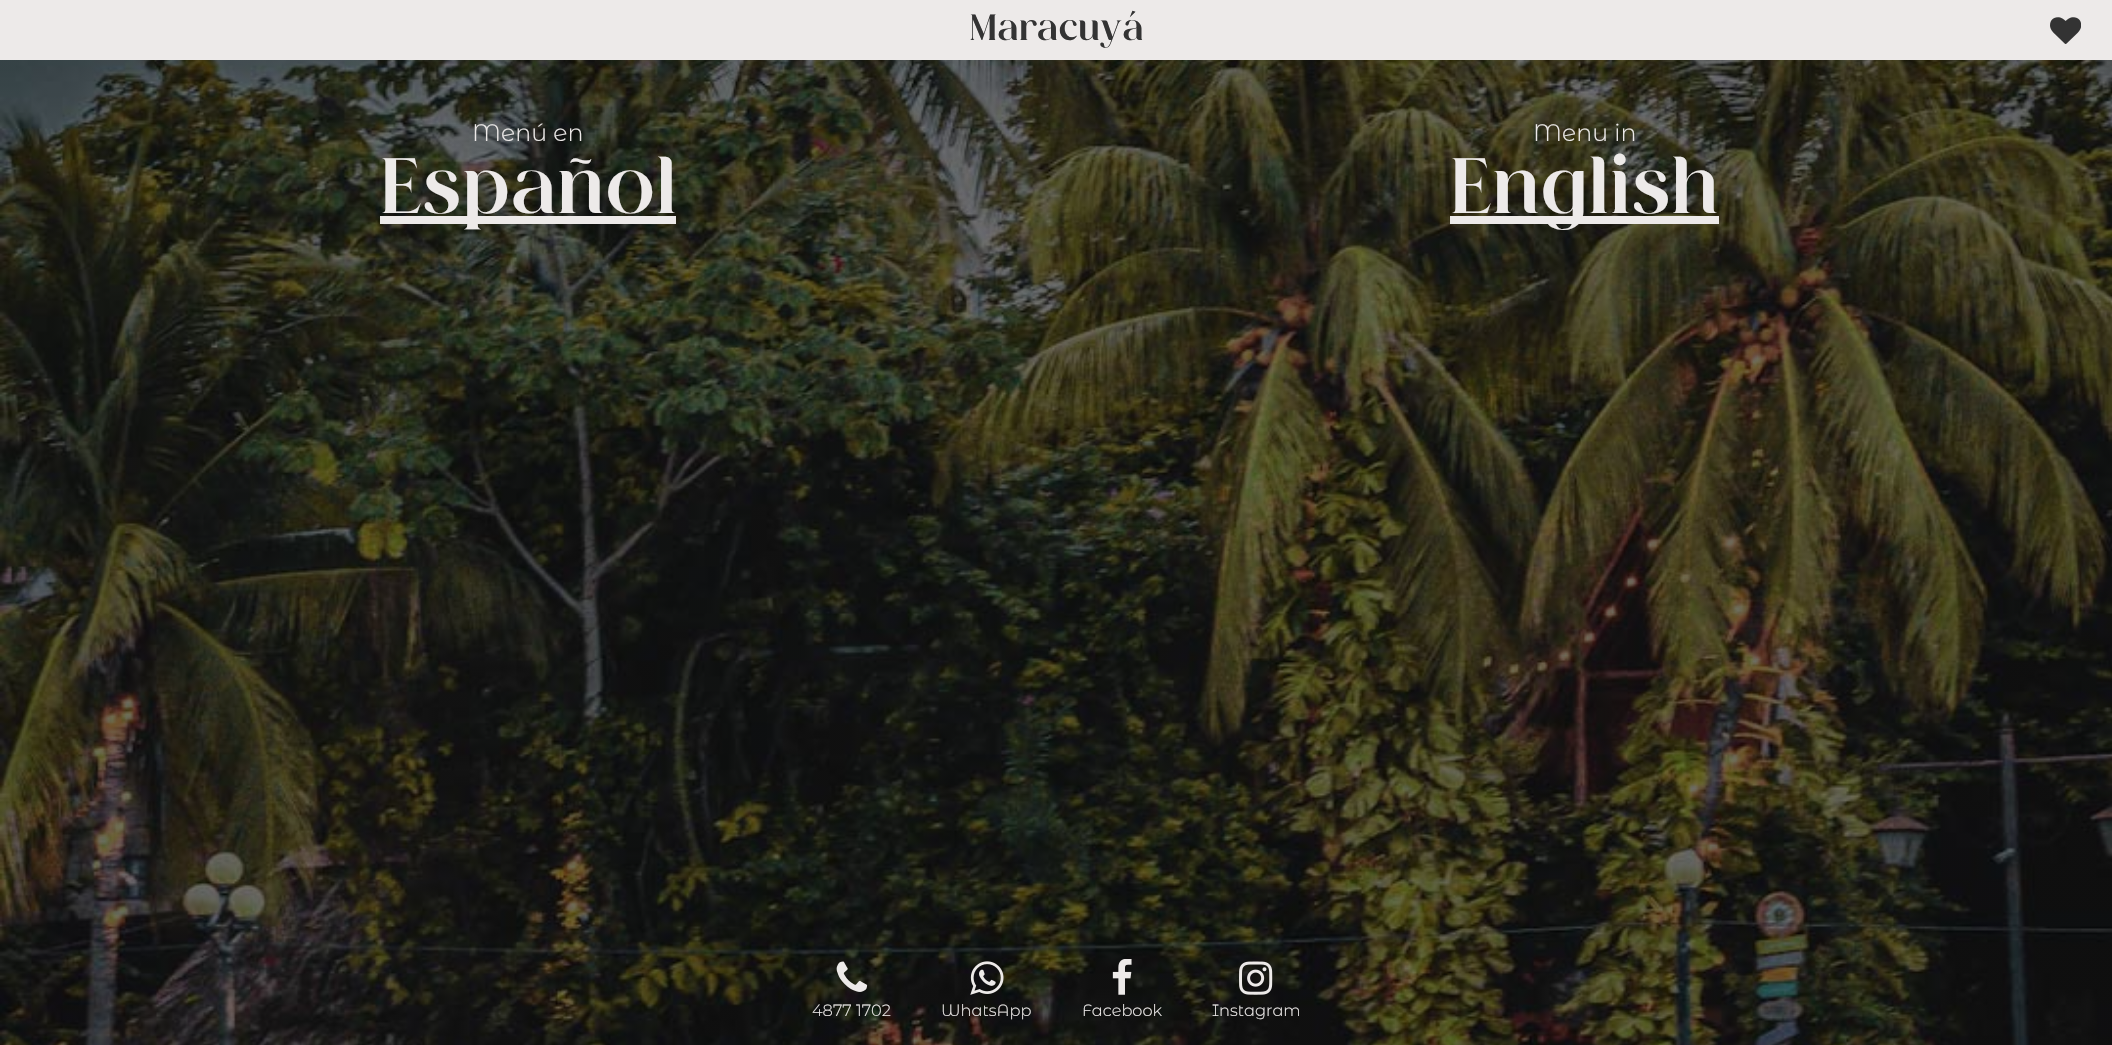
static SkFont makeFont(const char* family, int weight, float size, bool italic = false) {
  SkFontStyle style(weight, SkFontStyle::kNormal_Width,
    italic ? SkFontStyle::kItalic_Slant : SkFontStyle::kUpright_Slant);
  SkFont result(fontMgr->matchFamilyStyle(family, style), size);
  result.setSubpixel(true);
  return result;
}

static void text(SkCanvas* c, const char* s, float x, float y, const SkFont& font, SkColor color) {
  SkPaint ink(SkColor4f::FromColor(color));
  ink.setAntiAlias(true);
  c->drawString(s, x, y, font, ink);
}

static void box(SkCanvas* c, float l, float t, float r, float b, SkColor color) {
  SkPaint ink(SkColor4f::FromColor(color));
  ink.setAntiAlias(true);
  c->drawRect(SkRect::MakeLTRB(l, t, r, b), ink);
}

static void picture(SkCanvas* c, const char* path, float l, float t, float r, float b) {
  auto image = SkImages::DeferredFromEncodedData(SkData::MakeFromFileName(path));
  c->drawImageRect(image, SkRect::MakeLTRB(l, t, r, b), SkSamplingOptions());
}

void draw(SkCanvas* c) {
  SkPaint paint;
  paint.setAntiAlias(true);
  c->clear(0xffffffff);
  picture(c, "img_01.png", 0, 60, 2112, 1045);
  box(c, 0, 0, 2112, 60, 0xffedeae9);
  SkFont face1 = makeFont("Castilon", 400, 35);
  text(c, "Maracuyá", 969, 40, face1, 0xff333333);
  picture(c, "img_02.png", 2050, 17, 2081, 44);
  SkFont face2 = makeFont("Montserrat Alternates", 300, 23.75f);
  text(c, "Menú en", 472, 141, face2, 0xffedeae9);
  box(c, 380, 216, 676, 224, 0xffedeae9);
  SkFont face3 = makeFont("Castilon", 400, 75);
  text(c, "Español", 380, 213, face3, 0xffedeae9);
  text(c, "Menu in", 1533, 141, face2, 0xffedeae9);
  box(c, 1450, 216, 1719, 224, 0xffedeae9);
  text(c, "English", 1450, 213, face3, 0xffedeae9);
  picture(c, "img_03.png", 836, 961, 868, 992);
  SkFont face4 = makeFont("Montserrat Alternates", 300, 16.25f);
  text(c, "4877 1702", 812, 1016, face4, 0xffedeae9);
  picture(c, "img_04.png", 970, 961, 1004, 995);
  text(c, "WhatsApp", 941, 1016, face4, 0xffedeae9);
  picture(c, "img_05.png", 1112, 959, 1132, 995);
  text(c, "Facebook", 1082, 1016, face4, 0xffedeae9);
  picture(c, "img_06.png", 1239, 961, 1273, 995);
  text(c, "Instagram", 1212, 1016, face4, 0xffedeae9);
}
